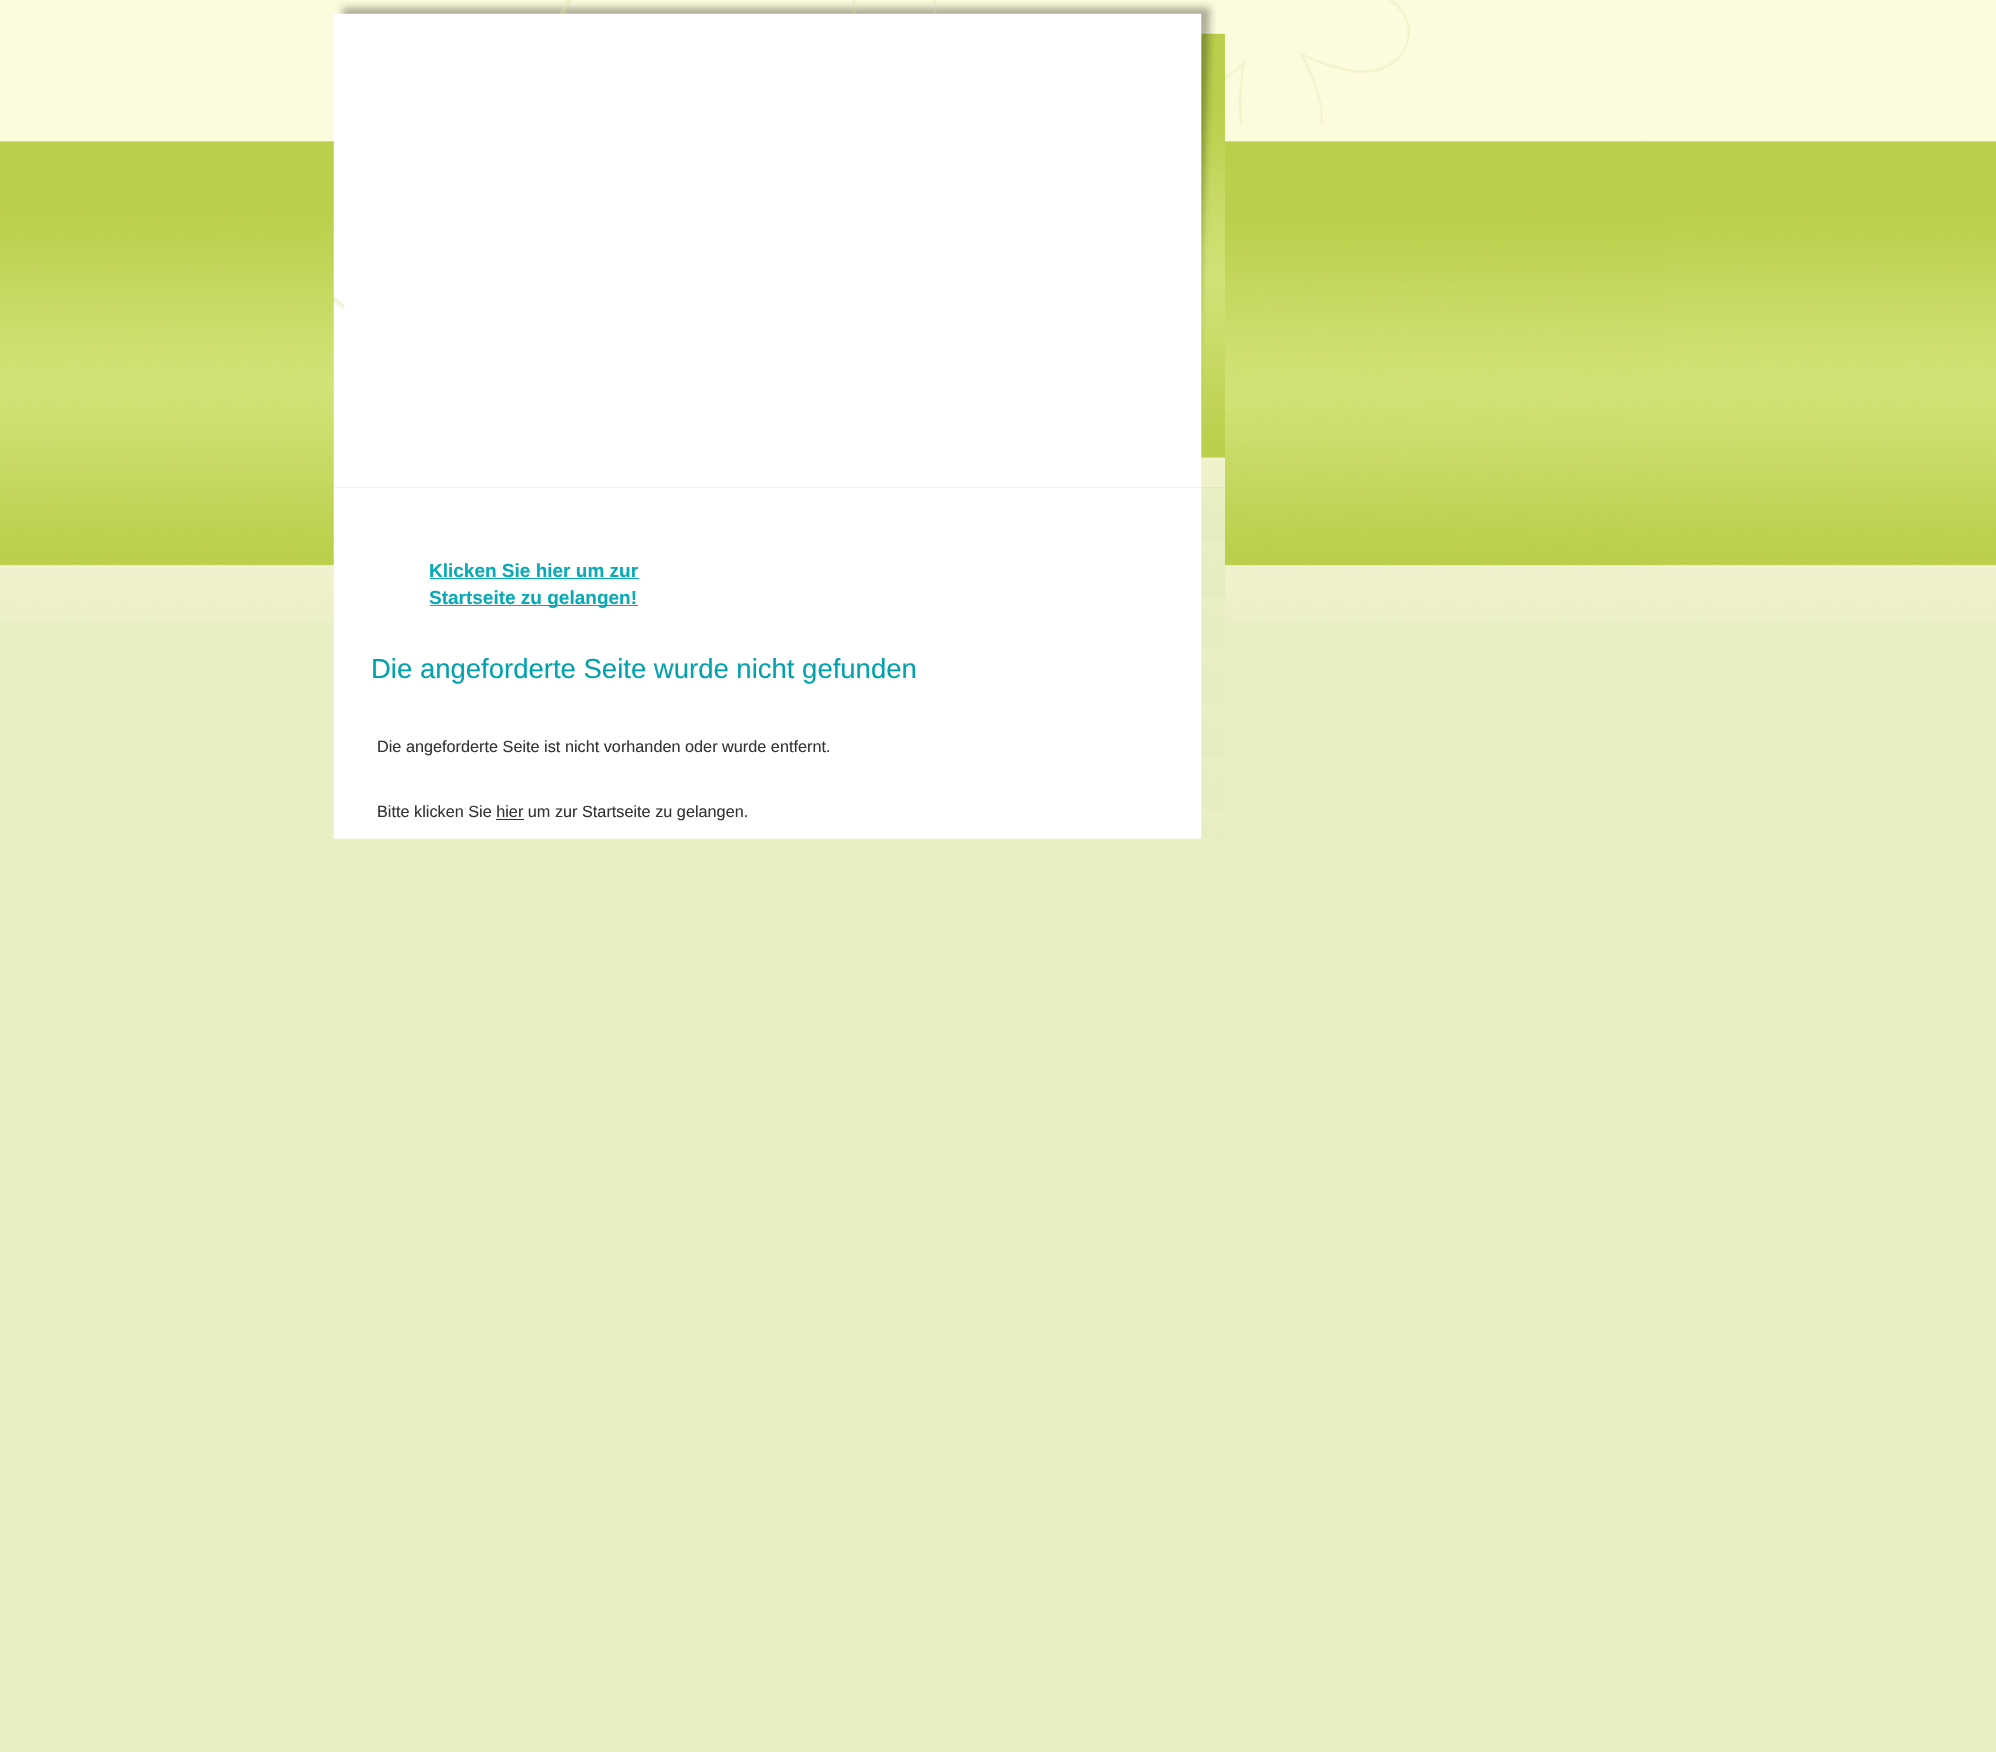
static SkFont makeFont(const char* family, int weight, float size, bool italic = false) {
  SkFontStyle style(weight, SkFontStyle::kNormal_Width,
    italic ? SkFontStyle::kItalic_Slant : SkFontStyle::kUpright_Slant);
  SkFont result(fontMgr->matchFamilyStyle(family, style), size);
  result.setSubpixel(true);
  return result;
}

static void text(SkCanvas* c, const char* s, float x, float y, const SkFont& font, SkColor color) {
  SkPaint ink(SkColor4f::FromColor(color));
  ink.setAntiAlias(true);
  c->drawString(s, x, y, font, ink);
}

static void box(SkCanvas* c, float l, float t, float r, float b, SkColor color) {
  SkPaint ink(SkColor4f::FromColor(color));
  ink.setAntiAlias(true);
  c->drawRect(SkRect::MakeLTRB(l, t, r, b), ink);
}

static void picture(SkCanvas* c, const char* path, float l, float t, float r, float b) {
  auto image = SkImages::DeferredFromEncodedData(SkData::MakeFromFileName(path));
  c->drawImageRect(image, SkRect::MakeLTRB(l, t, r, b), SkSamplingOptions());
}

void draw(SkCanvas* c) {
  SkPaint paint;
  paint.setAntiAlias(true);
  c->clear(0xffe9eec3);
  picture(c, "img_01.png", 0, 0, 1996, 621);
  picture(c, "img_02.png", 334, 0, 1664, 565);
  picture(c, "img_04.png", 333, 487, 1225, 839);
  picture(c, "img_03.png", 333, 0, 1225, 488);
  SkFont face1 = makeFont("Liberation Sans", 700, 19);
  text(c, "Klicken Sie hier um zur", 429, 577, face1, 0xff07aab5);
  box(c, 430, 578, 639, 579, 0xff07aab5);
  box(c, 430, 605, 638, 606, 0xff07aab5);
  text(c, "Startseite zu gelangen!", 429, 604, face1, 0xff07aab5);
  SkFont face2 = makeFont("Liberation Sans", 400, 27.5f);
  text(c, "Die angeforderte Seite wurde nicht gefunden", 371, 678, face2, 0xff00a2ad);
  SkFont face3 = makeFont("Liberation Sans", 400, 16.25f);
  text(c, "Die angeforderte Seite ist nicht vorhanden oder wurde entfernt.", 377, 752, face3, 0xff333333);
  text(c, "Bitte klicken Sie hier um zur Startseite zu gelangen.", 377, 817, face3, 0xff333333);
  box(c, 496, 819, 524, 820, 0xff333333);
}
